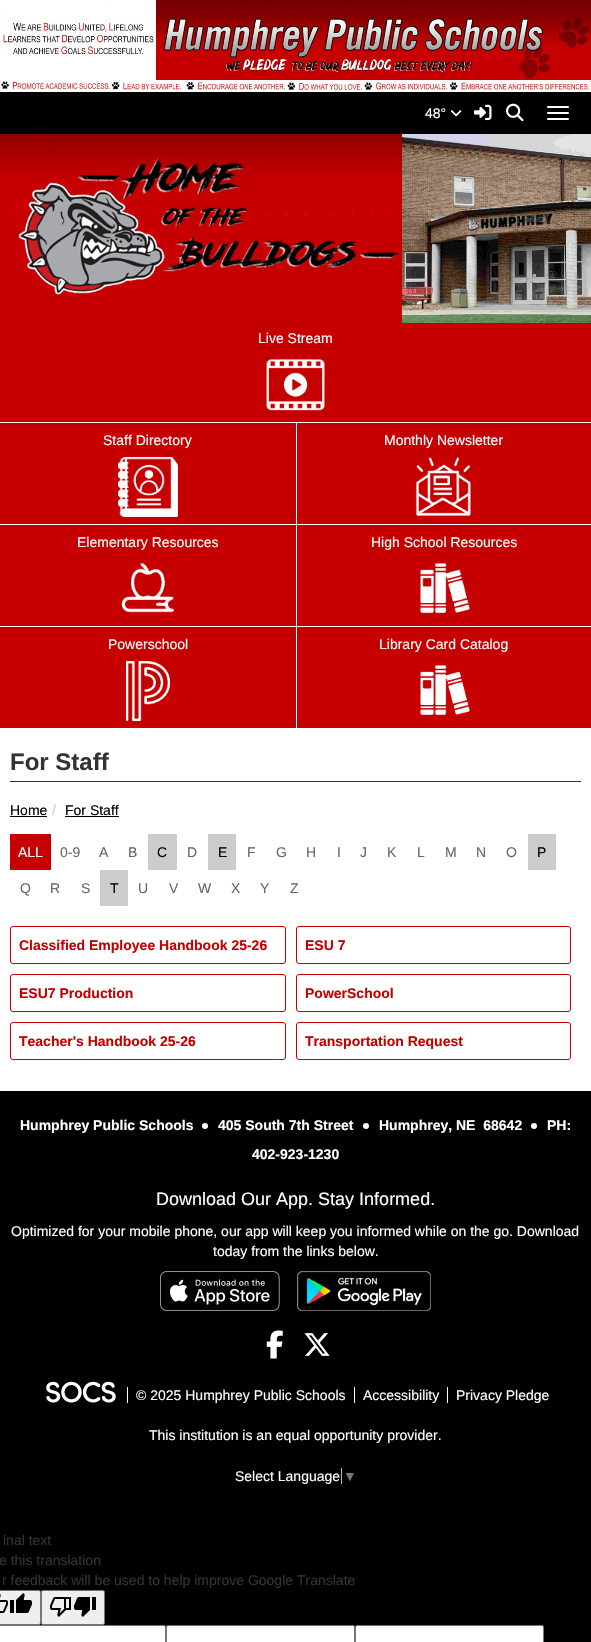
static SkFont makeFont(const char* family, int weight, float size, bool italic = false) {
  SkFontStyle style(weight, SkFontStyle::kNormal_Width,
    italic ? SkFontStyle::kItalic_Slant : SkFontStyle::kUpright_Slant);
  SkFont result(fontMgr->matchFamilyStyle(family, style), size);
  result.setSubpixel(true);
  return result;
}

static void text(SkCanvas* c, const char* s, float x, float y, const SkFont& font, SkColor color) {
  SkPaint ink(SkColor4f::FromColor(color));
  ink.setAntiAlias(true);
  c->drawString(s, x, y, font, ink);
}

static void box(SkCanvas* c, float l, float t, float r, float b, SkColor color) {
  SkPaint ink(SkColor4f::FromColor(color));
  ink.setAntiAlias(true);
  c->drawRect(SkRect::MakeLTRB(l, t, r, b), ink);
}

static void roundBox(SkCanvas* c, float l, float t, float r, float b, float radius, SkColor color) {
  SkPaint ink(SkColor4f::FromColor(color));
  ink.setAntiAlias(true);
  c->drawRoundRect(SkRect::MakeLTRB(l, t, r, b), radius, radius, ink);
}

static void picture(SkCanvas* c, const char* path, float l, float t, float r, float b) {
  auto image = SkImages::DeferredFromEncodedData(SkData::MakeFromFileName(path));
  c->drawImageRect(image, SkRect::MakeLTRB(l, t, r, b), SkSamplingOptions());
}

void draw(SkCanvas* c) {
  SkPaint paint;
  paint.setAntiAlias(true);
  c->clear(0xffffffff);
  {
    const SkColor colors[] = {0xff000000, 0xffc60001, 0xff000000};
    const float stops[] = {0, 0.3f, 0.8f};
    const SkPoint ends[] = {{295, 0}, {296, 1642}};
    paint.setShader(SkGradientShader::MakeLinear(ends, colors, stops, 3, SkTileMode::kClamp));
    paint.setAlpha(255);
  }
  c->drawRect(SkRect::MakeLTRB(0, 1380, 591, 1642), paint);
  picture(c, "img_01.png", 0, 0, 591, 92);
  box(c, 0, 92, 591, 134, 0xff000000);
  SkFont face1 = makeFont("Liberation Sans", 400, 14);
  text(c, "48°", 425, 118, face1, 0xffffffff);
  picture(c, "img_02.png", 451, 110, 462, 117);
  picture(c, "img_03.png", 474, 104, 492, 121);
  picture(c, "img_04.png", 506, 103, 524, 122);
  roundBox(c, 547, 106, 569, 108, 1, 0xffffffff);
  roundBox(c, 547, 112, 569, 114, 1, 0xffffffff);
  roundBox(c, 547, 118, 569, 120, 1, 0xffffffff);
  picture(c, "img_05.png", 0, 134, 402, 321);
  box(c, 0, 321, 591, 422, 0xffc60001);
  picture(c, "img_06.png", 402, 134, 591, 323);
  text(c, "Live Stream", 258, 343, face1, 0xffffffff);
  picture(c, "img_07.png", 266, 359, 325, 411);
  box(c, 0, 423, 296, 524, 0xffc60001);
  text(c, "Staff Directory", 103, 445, face1, 0xffffffff);
  picture(c, "img_08.png", 118, 457, 178, 517);
  box(c, 297, 423, 591, 524, 0xffc60001);
  text(c, "Monthly Newsletter", 384, 445, face1, 0xffffffff);
  picture(c, "img_09.png", 415, 457, 471, 516);
  box(c, 0, 525, 296, 626, 0xffc60001);
  text(c, "Elementary Resources", 77, 547, face1, 0xffffffff);
  picture(c, "img_10.png", 121, 563, 174, 613);
  box(c, 297, 525, 591, 626, 0xffc60001);
  text(c, "High School Resources", 371, 547, face1, 0xffffffff);
  picture(c, "img_11.png", 420, 563, 470, 613);
  box(c, 0, 627, 296, 728, 0xffc60001);
  text(c, "Powerschool", 108, 649, face1, 0xffffffff);
  picture(c, "img_12.png", 126, 661, 170, 721);
  box(c, 297, 627, 591, 728, 0xffc60001);
  text(c, "Library Card Catalog", 379, 649, face1, 0xffffffff);
  picture(c, "img_13.png", 420, 665, 470, 715);
  box(c, 10, 781, 581, 782, 0xff333333);
  SkFont face2 = makeFont("Liberation Sans", 700, 24);
  text(c, "For Staff", 10, 770, face2, 0xff333333);
  text(c, "Home", 10, 815, face1, 0xff000000);
  box(c, 10, 816, 47, 817, 0xff000000);
  text(c, "/", 52, 815, face1, 0xffcccccc);
  text(c, "For Staff", 65, 815, face1, 0xff000000);
  box(c, 65, 816, 119, 817, 0xff000000);
  box(c, 10, 834, 51, 870, 0xffc60001);
  text(c, "ALL", 18, 857, face1, 0xffffffff);
  text(c, "0-9", 60, 857, face1, 0xff666666);
  text(c, "A", 99, 857, face1, 0xff666666);
  text(c, "B", 128, 857, face1, 0xff666666);
  box(c, 148, 834, 177, 870, 0xffcccccc);
  text(c, "C", 157, 857, face1, 0xff000000);
  text(c, "D", 187, 857, face1, 0xff666666);
  box(c, 208, 834, 236, 870, 0xffcccccc);
  text(c, "E", 218, 857, face1, 0xff000000);
  text(c, "F", 247, 857, face1, 0xff666666);
  text(c, "G", 276, 857, face1, 0xff666666);
  text(c, "H", 306, 857, face1, 0xff666666);
  text(c, "I", 337, 857, face1, 0xff666666);
  text(c, "J", 360, 857, face1, 0xff666666);
  text(c, "K", 387, 857, face1, 0xff666666);
  text(c, "L", 417, 857, face1, 0xff666666);
  text(c, "M", 445, 857, face1, 0xff666666);
  text(c, "N", 476, 857, face1, 0xff666666);
  text(c, "O", 506, 857, face1, 0xff666666);
  box(c, 528, 834, 556, 870, 0xffcccccc);
  text(c, "P", 537, 857, face1, 0xff000000);
  text(c, "Q", 20, 893, face1, 0xff666666);
  text(c, "R", 50, 893, face1, 0xff666666);
  text(c, "S", 81, 893, face1, 0xff666666);
  box(c, 100, 870, 128, 906, 0xffcccccc);
  text(c, "T", 110, 893, face1, 0xff000000);
  text(c, "U", 138, 893, face1, 0xff666666);
  text(c, "V", 169, 893, face1, 0xff666666);
  text(c, "W", 198, 893, face1, 0xff666666);
  text(c, "X", 231, 893, face1, 0xff666666);
  text(c, "Y", 260, 893, face1, 0xff666666);
  text(c, "Z", 290, 893, face1, 0xff666666);
  paint.setStyle(SkPaint::kStroke_Style);
  paint.setStrokeWidth(1);
  paint.setShader(nullptr);
  paint.setColor(0xffc60001);
  c->drawRoundRect(SkRect::MakeLTRB(10.5f, 926.5f, 285.5f, 963.5f), 2.5f, 2.5f, paint);
  SkFont face3 = makeFont("Liberation Sans", 700, 14);
  text(c, "Classified Employee Handbook 25-26", 19, 950, face3, 0xffc60001);
  c->drawRoundRect(SkRect::MakeLTRB(296.5f, 926.5f, 570.5f, 963.5f), 2.5f, 2.5f, paint);
  text(c, "ESU 7", 305, 950, face3, 0xffc60001);
  c->drawRoundRect(SkRect::MakeLTRB(10.5f, 974.5f, 285.5f, 1011.5f), 2.5f, 2.5f, paint);
  text(c, "ESU7 Production", 19, 998, face3, 0xffc60001);
  c->drawRoundRect(SkRect::MakeLTRB(296.5f, 974.5f, 570.5f, 1011.5f), 2.5f, 2.5f, paint);
  text(c, "PowerSchool", 305, 998, face3, 0xffc60001);
  c->drawRoundRect(SkRect::MakeLTRB(10.5f, 1022.5f, 285.5f, 1059.5f), 2.5f, 2.5f, paint);
  text(c, "Teacher's Handbook 25-26", 19, 1046, face3, 0xffc60001);
  c->drawRoundRect(SkRect::MakeLTRB(296.5f, 1022.5f, 570.5f, 1059.5f), 2.5f, 2.5f, paint);
  text(c, "Transportation Request", 305, 1046, face3, 0xffc60001);
  box(c, 0, 1091, 591, 1380, 0xff000000);
  text(c, "Humphrey Public Schools", 20, 1130, face3, 0xffffffff);
  paint.setStyle(SkPaint::kFill_Style);
  paint.setColor(0xffffffff);
  c->drawCircle(205, 1126, 3, paint);
  text(c, "405 South 7th Street", 218, 1130, face3, 0xffffffff);
  c->drawCircle(366, 1126, 3, paint);
  text(c, "Humphrey, NE  68642", 379, 1130, face3, 0xffffffff);
  c->drawCircle(534, 1126, 3, paint);
  text(c, "PH:", 547, 1130, face3, 0xffffffff);
  text(c, "402-923-1230", 252, 1159, face3, 0xffffffff);
  SkFont face4 = makeFont("Liberation Sans", 400, 18);
  text(c, "Download Our App. Stay Informed.", 156, 1205, face4, 0xffffffff);
  text(c, "Optimized for your mobile phone, our app will keep you informed while on the go. Download", 11, 1236, face1, 0xffffffff);
  text(c, "today from the links below.", 213, 1256, face1, 0xffffffff);
  picture(c, "img_14.png", 160, 1271, 280, 1311);
  picture(c, "img_15.png", 297, 1271, 431, 1311);
  picture(c, "img_16.png", 266, 1330, 283, 1359);
  picture(c, "img_17.png", 304, 1333, 330, 1356);
  picture(c, "img_18.png", 46, 1381, 116, 1403);
  text(c, "© 2025 Humphrey Public Schools", 136, 1400, face1, 0xffffffff);
  box(c, 127, 1387, 128, 1403, 0xffffffff);
  text(c, "Accessibility", 363, 1400, face1, 0xffffffff);
  box(c, 354, 1387, 355, 1403, 0xffffffff);
  text(c, "Privacy Pledge", 456, 1400, face1, 0xffffffff);
  box(c, 447, 1387, 448, 1403, 0xffffffff);
  text(c, "This institution is an equal opportunity provider.", 149, 1440, face1, 0xffffffff);
  text(c, "Select Language", 235, 1481, face1, 0xffffffff);
  box(c, 341, 1468, 342, 1484, 0xffbbbbbb);
  text(c, "▼", 343, 1481, face1, 0xff767676);
  text(c, "inal text", 3, 1545, face1, 0xff333333);
  text(c, "e this translation", -1, 1565, face1, 0xff333333);
  text(c, "r feedback will be used to help improve Google Translate", 2, 1585, face1, 0xff333333);
  paint.setColor(0xffefefef);
  c->drawRoundRect(SkRect::MakeLTRB(-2.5f, 1590.5f, 40.5f, 1624.5f), 1.5f, 1.5f, paint);
  paint.setStyle(SkPaint::kStroke_Style);
  paint.setColor(0xff767676);
  c->drawRoundRect(SkRect::MakeLTRB(-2.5f, 1590.5f, 40.5f, 1624.5f), 1.5f, 1.5f, paint);
  picture(c, "img_19.png", 0, 1594, 8, 1613);
  picture(c, "img_20.png", 10, 1593, 32, 1613);
  paint.setStyle(SkPaint::kFill_Style);
  paint.setColor(0xffefefef);
  c->drawRoundRect(SkRect::MakeLTRB(41.5f, 1590.5f, 104.5f, 1624.5f), 1.5f, 1.5f, paint);
  paint.setStyle(SkPaint::kStroke_Style);
  paint.setColor(0xff767676);
  c->drawRoundRect(SkRect::MakeLTRB(41.5f, 1590.5f, 104.5f, 1624.5f), 1.5f, 1.5f, paint);
  picture(c, "img_21.png", 50, 1597, 71, 1617);
  picture(c, "img_22.png", 74, 1597, 96, 1617);
  paint.setStyle(SkPaint::kFill_Style);
  paint.setColor(0xffffffff);
  c->drawRoundRect(SkRect::MakeLTRB(-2.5f, 1625.5f, 165.5f, 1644.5f), 1.5f, 1.5f, paint);
  paint.setStyle(SkPaint::kStroke_Style);
  paint.setColor(0xff767676);
  c->drawRoundRect(SkRect::MakeLTRB(-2.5f, 1625.5f, 165.5f, 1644.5f), 1.5f, 1.5f, paint);
  paint.setStyle(SkPaint::kFill_Style);
  paint.setColor(0xffffffff);
  c->drawRoundRect(SkRect::MakeLTRB(166.5f, 1625.5f, 354.5f, 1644.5f), 1.5f, 1.5f, paint);
  paint.setStyle(SkPaint::kStroke_Style);
  paint.setColor(0xff767676);
  c->drawRoundRect(SkRect::MakeLTRB(166.5f, 1625.5f, 354.5f, 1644.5f), 1.5f, 1.5f, paint);
  paint.setStyle(SkPaint::kFill_Style);
  paint.setColor(0xffffffff);
  c->drawRoundRect(SkRect::MakeLTRB(355.5f, 1625.5f, 543.5f, 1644.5f), 1.5f, 1.5f, paint);
  paint.setStyle(SkPaint::kStroke_Style);
  paint.setColor(0xff767676);
  c->drawRoundRect(SkRect::MakeLTRB(355.5f, 1625.5f, 543.5f, 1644.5f), 1.5f, 1.5f, paint);
}
